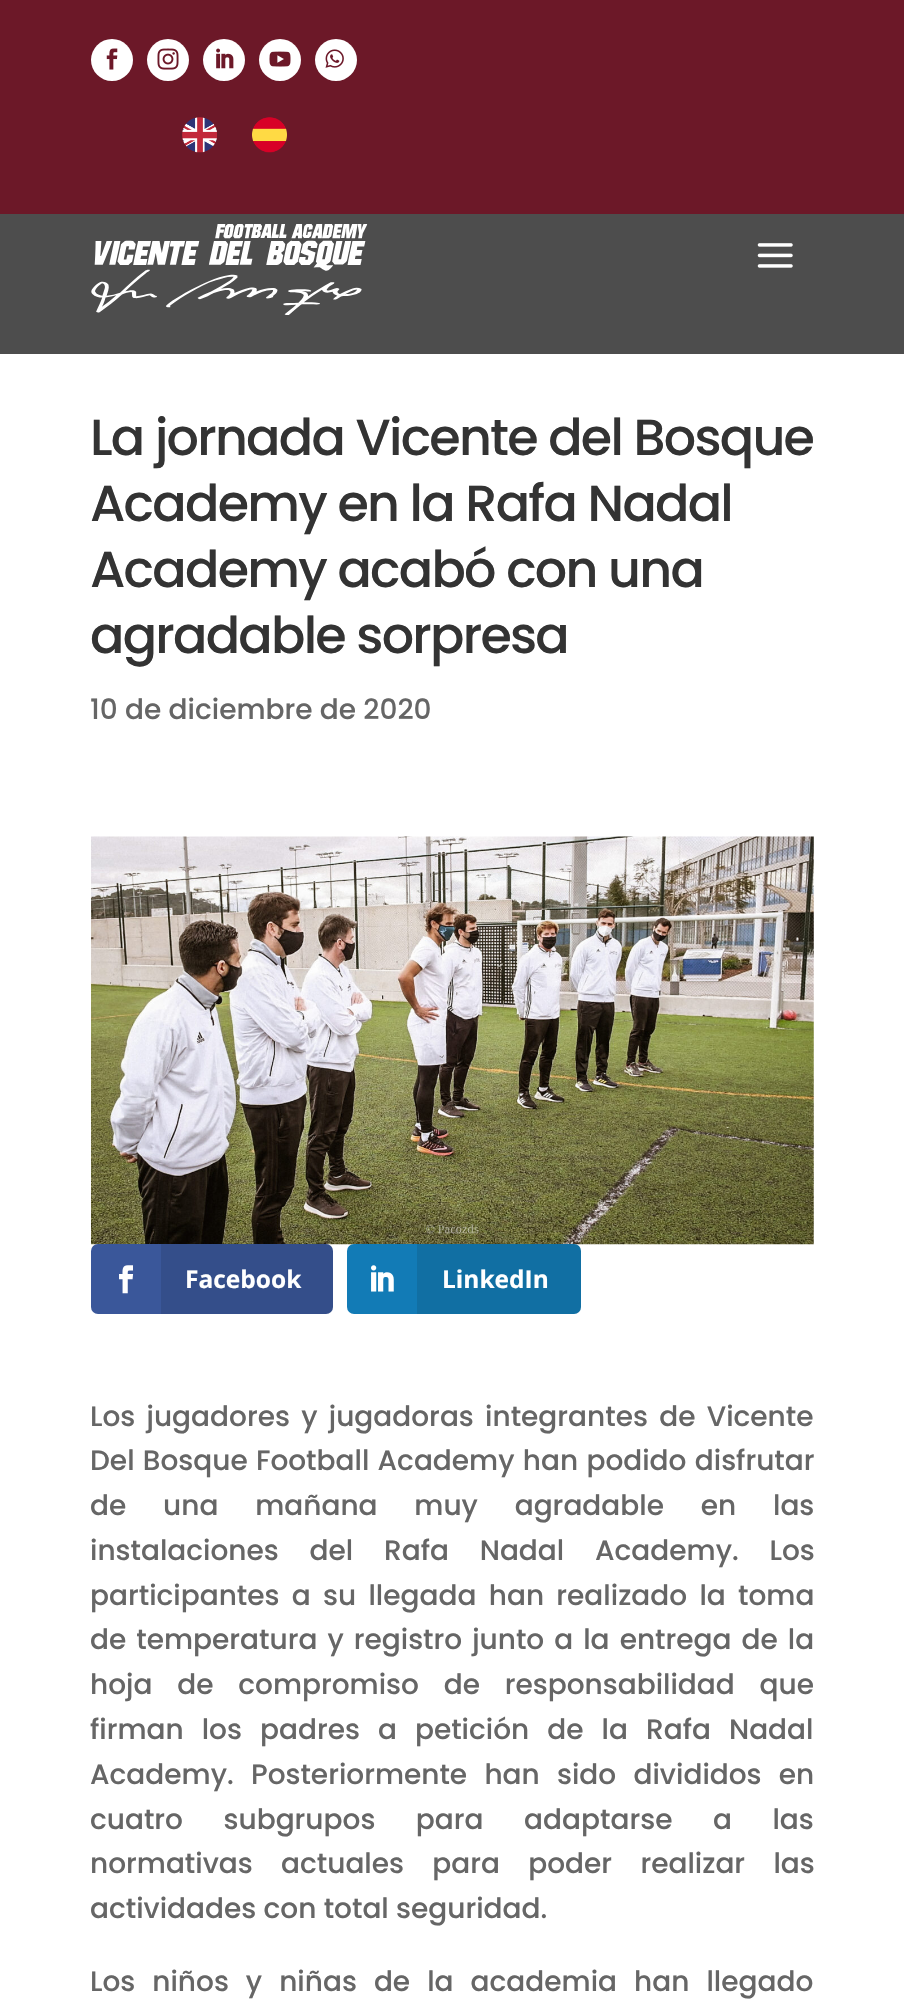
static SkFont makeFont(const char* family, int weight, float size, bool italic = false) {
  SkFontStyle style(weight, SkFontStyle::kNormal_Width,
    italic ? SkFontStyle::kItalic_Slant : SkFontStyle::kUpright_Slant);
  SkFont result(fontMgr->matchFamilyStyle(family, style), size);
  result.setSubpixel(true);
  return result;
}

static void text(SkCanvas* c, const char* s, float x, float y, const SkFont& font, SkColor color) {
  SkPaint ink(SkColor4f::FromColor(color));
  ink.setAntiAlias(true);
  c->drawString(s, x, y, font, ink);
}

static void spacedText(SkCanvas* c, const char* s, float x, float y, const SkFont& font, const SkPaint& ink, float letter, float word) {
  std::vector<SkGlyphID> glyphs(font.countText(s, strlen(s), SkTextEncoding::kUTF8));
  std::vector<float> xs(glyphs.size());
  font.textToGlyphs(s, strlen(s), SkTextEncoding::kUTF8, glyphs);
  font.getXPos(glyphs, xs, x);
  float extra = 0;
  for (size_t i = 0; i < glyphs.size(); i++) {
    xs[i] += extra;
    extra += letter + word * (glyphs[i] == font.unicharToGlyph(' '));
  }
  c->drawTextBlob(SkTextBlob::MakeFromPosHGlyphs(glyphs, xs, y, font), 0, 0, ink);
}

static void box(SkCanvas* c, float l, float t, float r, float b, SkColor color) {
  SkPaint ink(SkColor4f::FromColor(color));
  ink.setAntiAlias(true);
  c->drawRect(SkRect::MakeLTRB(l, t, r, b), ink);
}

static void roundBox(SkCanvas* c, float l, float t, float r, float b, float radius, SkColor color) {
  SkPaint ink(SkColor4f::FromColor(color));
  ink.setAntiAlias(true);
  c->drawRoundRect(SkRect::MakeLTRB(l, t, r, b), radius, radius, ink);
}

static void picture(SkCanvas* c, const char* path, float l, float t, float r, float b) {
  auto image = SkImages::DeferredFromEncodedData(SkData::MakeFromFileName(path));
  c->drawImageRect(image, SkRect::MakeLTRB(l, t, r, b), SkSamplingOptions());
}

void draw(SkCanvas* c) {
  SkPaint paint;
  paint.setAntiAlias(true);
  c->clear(0xffffffff);
  box(c, 0, 0, 904, 214, 0xff6c1828);
  paint.setColor(0xffffffff);
  c->drawCircle(112, 60, 21, paint);
  picture(c, "img_01.png", 106, 48, 118, 70);
  c->drawCircle(168, 60, 21, paint);
  picture(c, "img_02.png", 157, 48, 179, 70);
  c->drawCircle(224, 60, 21, paint);
  picture(c, "img_03.png", 216, 48, 234, 69);
  c->drawCircle(280, 60, 21, paint);
  picture(c, "img_04.png", 269, 51, 291, 67);
  c->drawCircle(336, 60, 21, paint);
  picture(c, "img_05.png", 325, 49, 344, 68);
  picture(c, "img_06.png", 182, 117, 217, 153);
  picture(c, "img_07.png", 252, 117, 287, 153);
  box(c, 0, 214, 904, 354, 0xff4d4d4d);
  picture(c, "img_08.png", 91, 224, 368, 315);
  picture(c, "img_09.png", 757, 243, 793, 268);
  SkFont face1 = makeFont("Poppins", 500, 50.75f);
  paint.setColor(0xff333333);
  spacedText(c, "La jornada Vicente del Bosque", 90, 455, face1, paint, -1.75f, 0);
  spacedText(c, "Academy en la Rafa Nadal", 90, 521, face1, paint, -1.75f, 0);
  spacedText(c, "Academy acabó con una", 90, 587, face1, paint, -1.75f, 0);
  spacedText(c, "agradable sorpresa", 90, 653, face1, paint, -1.75f, 0);
  SkFont face2 = makeFont("Poppins", 500, 28);
  text(c, "10 de diciembre de 2020", 90, 719, face2, 0xff666666);
  picture(c, "img_10.png", 91, 836, 814, 1245);
  roundBox(c, 91, 1244, 333, 1314, 7, 0xff3a579a);
  picture(c, "img_11.png", 119, 1265, 134, 1294);
  paint.setColor(0x1a000000);
  c->drawPath(SkPathBuilder().moveTo(161, 1244).lineTo(326, 1244).cubicTo(330, 1244, 333, 1247, 333, 1251).lineTo(333, 1307).cubicTo(333, 1311, 330, 1314, 326, 1314).lineTo(161, 1314).close().detach(), paint);
  SkFont face3 = makeFont("Open Sans", 700, 24.5f);
  text(c, "Facebook", 185, 1288, face3, 0xffffffff);
  roundBox(c, 347, 1244, 581, 1314, 7, 0xff127bb6);
  picture(c, "img_12.png", 371, 1265, 394, 1292);
  c->drawPath(SkPathBuilder().moveTo(417, 1244).lineTo(574, 1244).cubicTo(578, 1244, 581, 1247, 581, 1251).lineTo(581, 1307).cubicTo(581, 1311, 578, 1314, 574, 1314).lineTo(417, 1314).close().detach(), paint);
  text(c, "LinkedIn", 442, 1288, face3, 0xffffffff);
  paint.setColor(0xff666666);
  spacedText(c, "Los jugadores y jugadoras integrantes de Vicente", 90, 1426, face2, paint, 0, 4);
  spacedText(c, "Del Bosque Football Academy han podido disfrutar", 90, 1470, face2, paint, 0, 1);
  spacedText(c, "de una mañana muy agradable en las", 90, 1515, face2, paint, 0, 29.5f);
  spacedText(c, "instalaciones del Rafa Nadal Academy. Los", 90, 1560, face2, paint, 0, 23.5f);
  spacedText(c, "participantes a su llegada han realizado la toma", 90, 1605, face2, paint, 0, 5);
  spacedText(c, "de temperatura y registro junto a la entrega de la", 90, 1649, face2, paint, 0, 2.75f);
  spacedText(c, "hoja de compromiso de responsabilidad que", 90, 1694, face2, paint, 0, 17.5f);
  spacedText(c, "firman los padres a petición de la Rafa Nadal", 90, 1739, face2, paint, 0, 10.75f);
  spacedText(c, "Academy. Posteriormente han sido divididos en", 90, 1784, face2, paint, 0, 10);
  spacedText(c, "cuatro subgrupos para adaptarse a las", 90, 1829, face2, paint, 0, 33.25f);
  spacedText(c, "normativas actuales para poder realizar las", 90, 1873, face2, paint, 0, 21);
  text(c, "actividades con total seguridad.", 90, 1918, face2, 0xff666666);
  spacedText(c, "Los niños y niñas de la academia han llegado", 90, 1991, face2, paint, 0, 9.75f);
}
